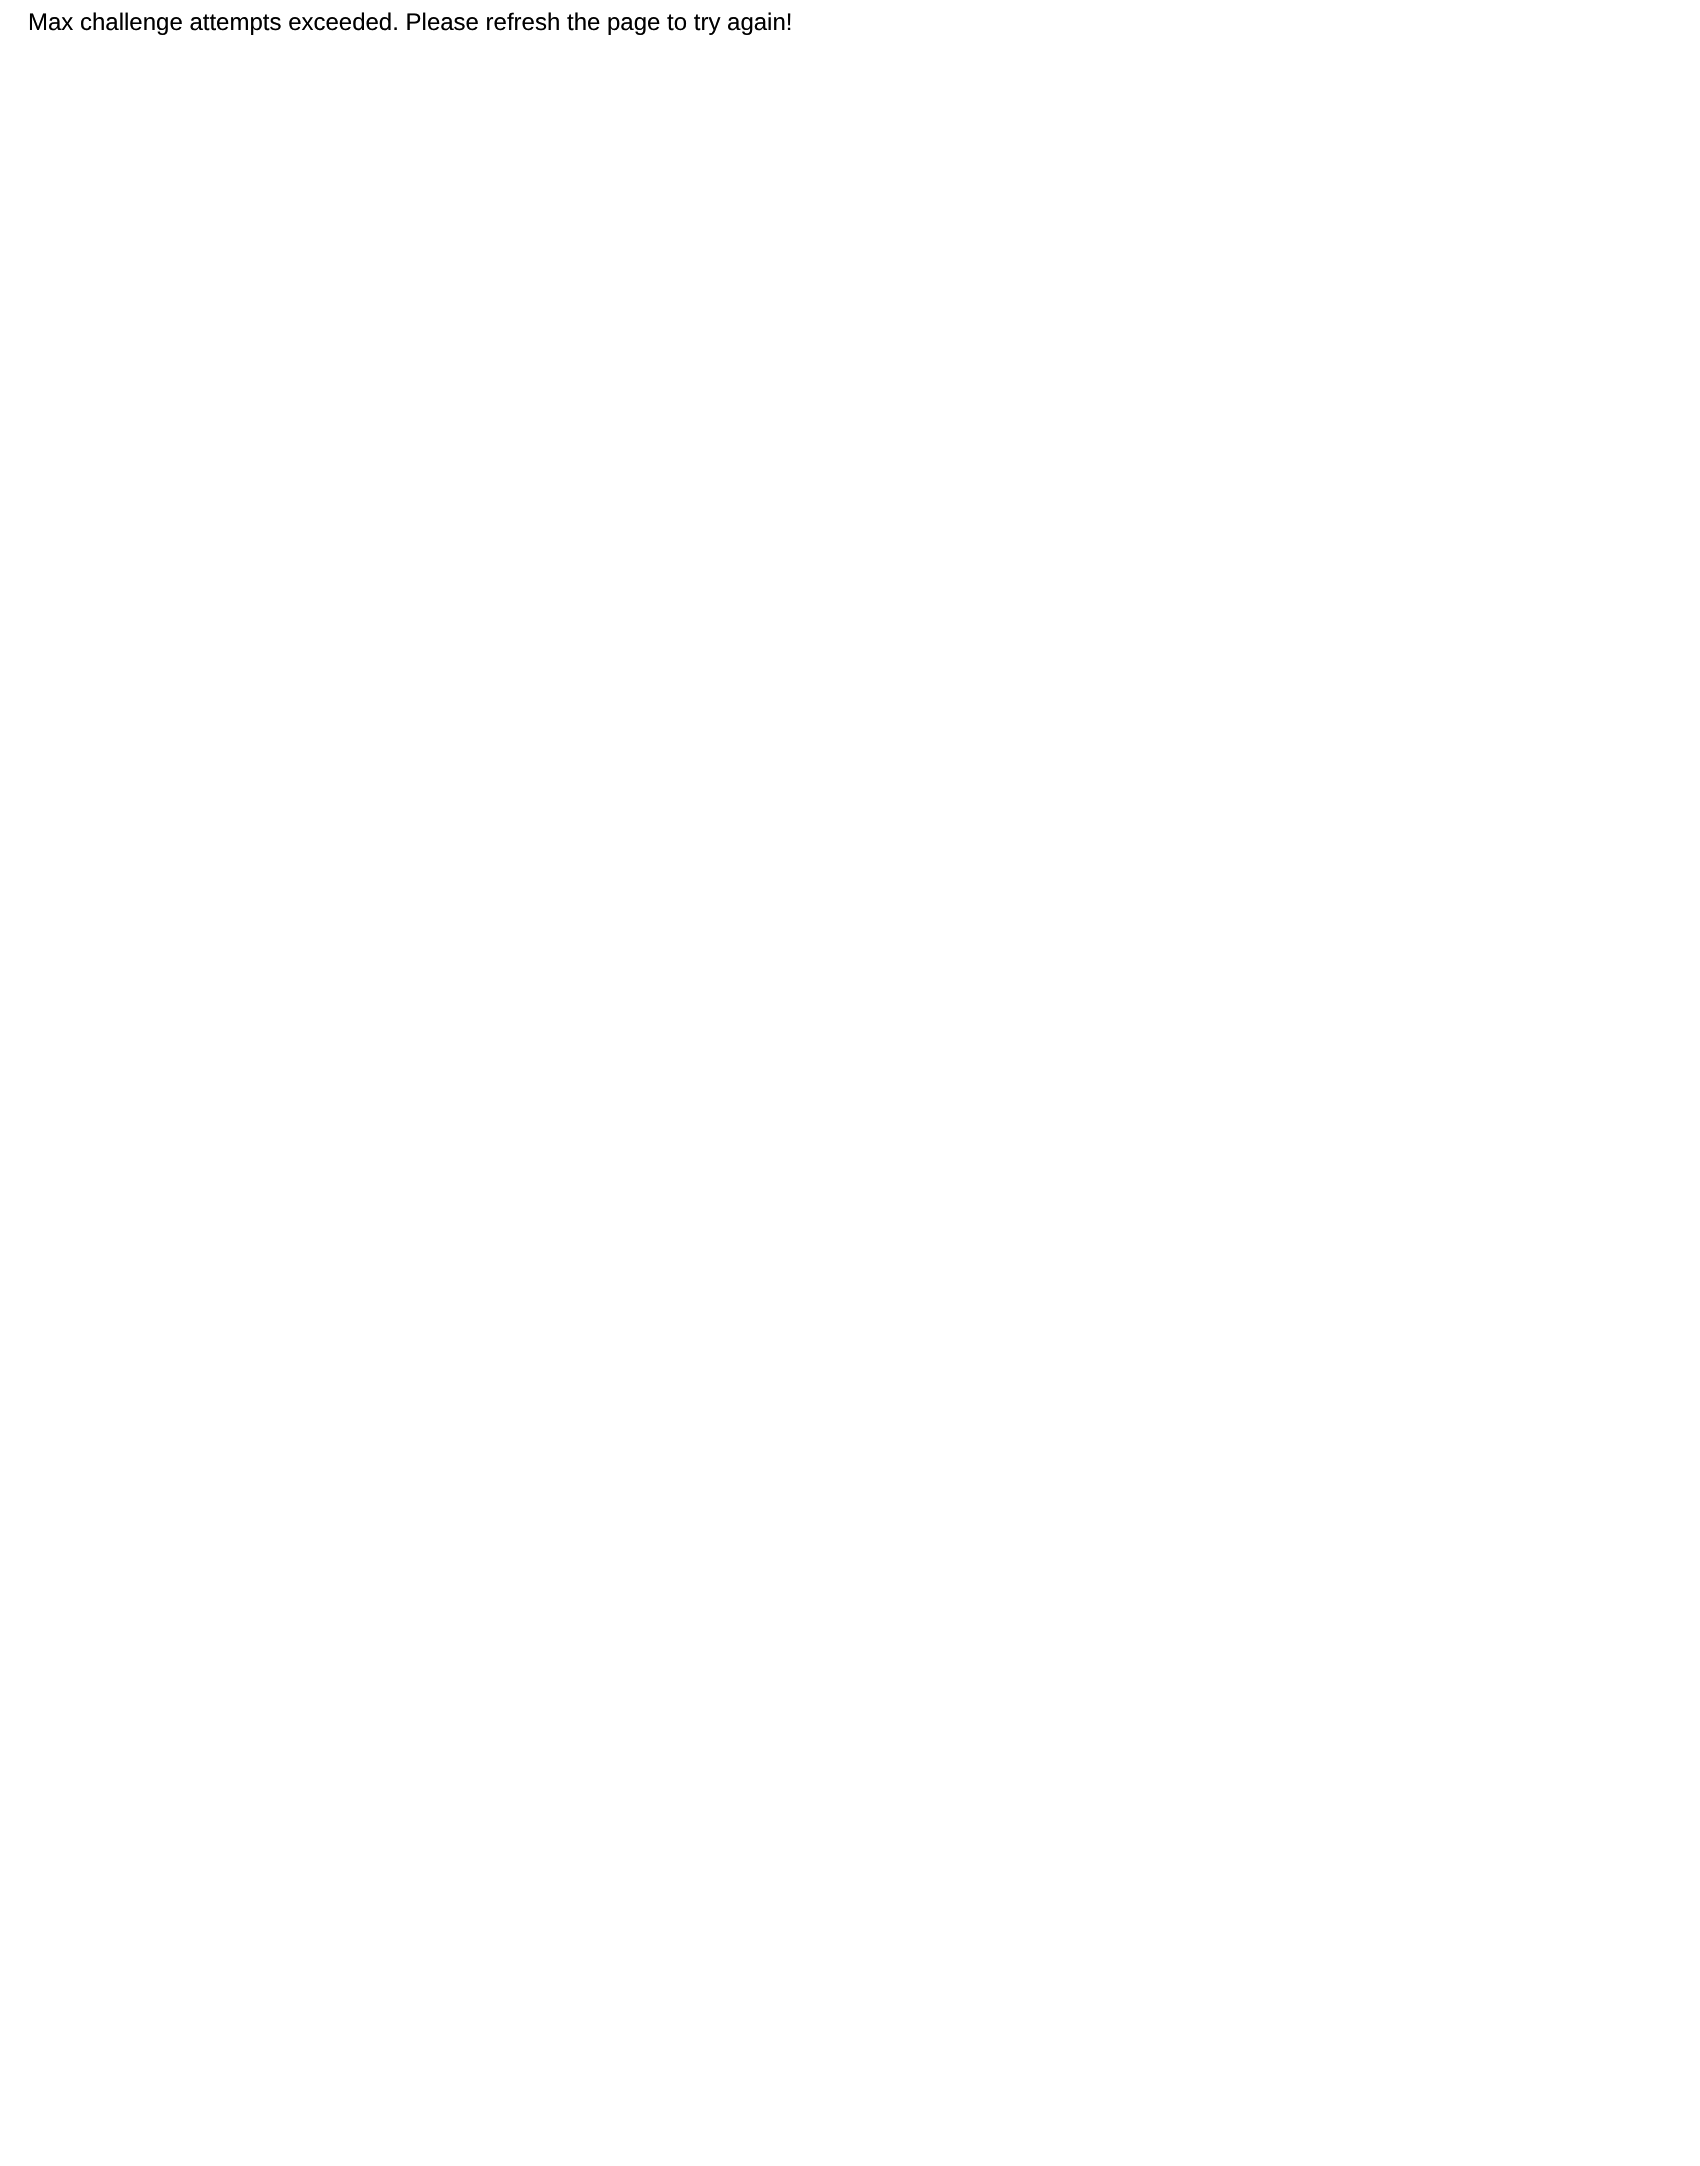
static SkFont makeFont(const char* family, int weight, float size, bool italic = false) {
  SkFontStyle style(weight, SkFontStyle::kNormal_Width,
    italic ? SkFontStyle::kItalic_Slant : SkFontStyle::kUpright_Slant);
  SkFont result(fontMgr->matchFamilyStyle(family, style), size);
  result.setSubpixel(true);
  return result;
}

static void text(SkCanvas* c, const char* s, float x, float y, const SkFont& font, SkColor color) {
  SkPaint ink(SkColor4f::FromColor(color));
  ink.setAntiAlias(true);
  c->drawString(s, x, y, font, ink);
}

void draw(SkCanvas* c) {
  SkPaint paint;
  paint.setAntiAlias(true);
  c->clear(0xffffffff);
  SkFont face1 = makeFont("Liberation Sans", 400, 24);
  text(c, "Max challenge attempts exceeded. Please refresh the page to try again!", 28, 30, face1, 0xff000000);
}
